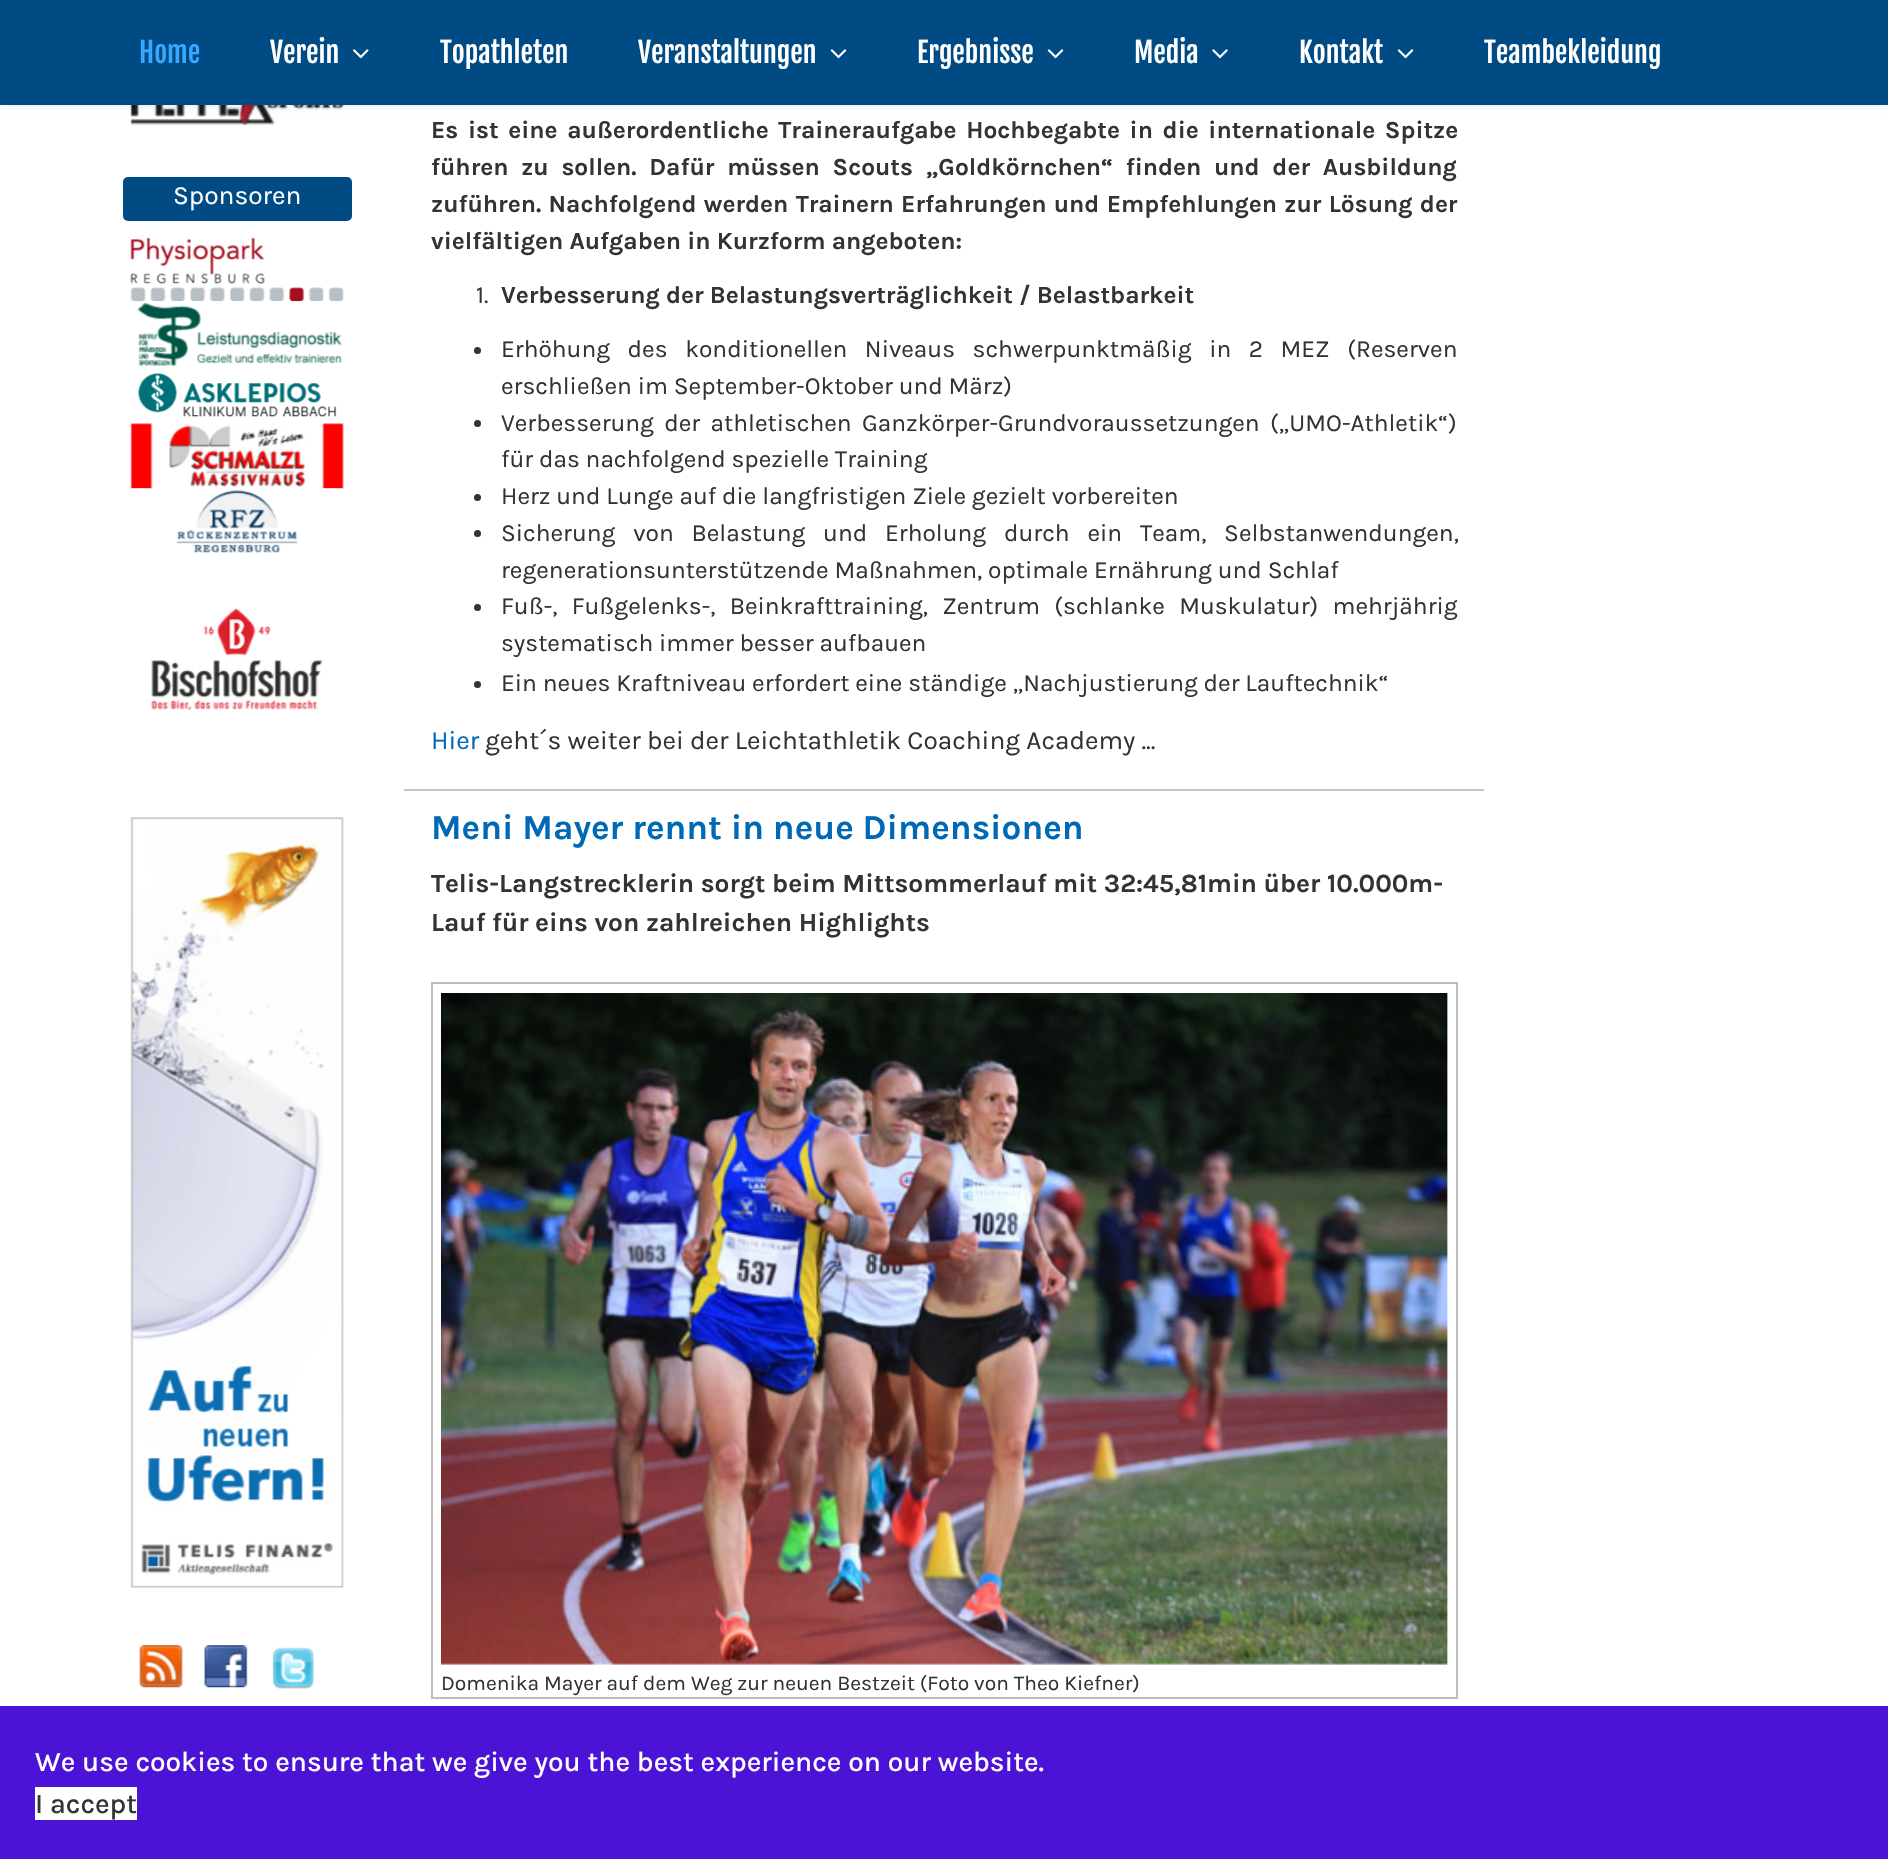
static SkFont makeFont(const char* family, int weight, float size, bool italic = false) {
  SkFontStyle style(weight, SkFontStyle::kNormal_Width,
    italic ? SkFontStyle::kItalic_Slant : SkFontStyle::kUpright_Slant);
  SkFont result(fontMgr->matchFamilyStyle(family, style), size);
  result.setSubpixel(true);
  return result;
}

static void text(SkCanvas* c, const char* s, float x, float y, const SkFont& font, SkColor color) {
  SkPaint ink(SkColor4f::FromColor(color));
  ink.setAntiAlias(true);
  c->drawString(s, x, y, font, ink);
}

static void spacedText(SkCanvas* c, const char* s, float x, float y, const SkFont& font, const SkPaint& ink, float letter, float word) {
  std::vector<SkGlyphID> glyphs(font.countText(s, strlen(s), SkTextEncoding::kUTF8));
  std::vector<float> xs(glyphs.size());
  font.textToGlyphs(s, strlen(s), SkTextEncoding::kUTF8, glyphs);
  font.getXPos(glyphs, xs, x);
  float extra = 0;
  for (size_t i = 0; i < glyphs.size(); i++) {
    xs[i] += extra;
    extra += letter + word * (glyphs[i] == font.unicharToGlyph(' '));
  }
  c->drawTextBlob(SkTextBlob::MakeFromPosHGlyphs(glyphs, xs, y, font), 0, 0, ink);
}

static void box(SkCanvas* c, float l, float t, float r, float b, SkColor color) {
  SkPaint ink(SkColor4f::FromColor(color));
  ink.setAntiAlias(true);
  c->drawRect(SkRect::MakeLTRB(l, t, r, b), ink);
}

static void roundBox(SkCanvas* c, float l, float t, float r, float b, float radius, SkColor color) {
  SkPaint ink(SkColor4f::FromColor(color));
  ink.setAntiAlias(true);
  c->drawRoundRect(SkRect::MakeLTRB(l, t, r, b), radius, radius, ink);
}

static void picture(SkCanvas* c, const char* path, float l, float t, float r, float b) {
  auto image = SkImages::DeferredFromEncodedData(SkData::MakeFromFileName(path));
  c->drawImageRect(image, SkRect::MakeLTRB(l, t, r, b), SkSamplingOptions());
}

void draw(SkCanvas* c) {
  SkPaint paint;
  paint.setAntiAlias(true);
  c->clear(0xffffffff);
  picture(c, "img_04.png", 130, 105, 344, 126);
  paint.setColor(0x1a000000);
  paint.setMaskFilter(SkMaskFilter::MakeBlur(kNormal_SkBlurStyle, 3.5f));
  c->drawRect(SkRect::MakeLTRB(0, 0, 1888, 105), paint);
  paint.setMaskFilter(nullptr);
  box(c, 0, 0, 1888, 105, 0xff004b84);
  SkFont face1 = makeFont("Fjalla One", 400, 28);
  text(c, "Home", 139, 63, face1, 0xff37a7ff);
  text(c, "Verein", 270, 63, face1, 0xffffffff);
  picture(c, "img_01.png", 353, 49, 369, 59);
  text(c, "Topathleten", 440, 63, face1, 0xffffffff);
  text(c, "Veranstaltungen", 638, 63, face1, 0xffffffff);
  picture(c, "img_02.png", 830, 49, 847, 59);
  text(c, "Ergebnisse", 917, 63, face1, 0xffffffff);
  picture(c, "img_02.png", 1047, 49, 1064, 59);
  text(c, "Media", 1134, 63, face1, 0xffffffff);
  picture(c, "img_03.png", 1212, 49, 1228, 59);
  text(c, "Kontakt", 1299, 63, face1, 0xffffffff);
  picture(c, "img_02.png", 1397, 49, 1414, 59);
  text(c, "Teambekleidung", 1484, 63, face1, 0xffffffff);
  roundBox(c, 123, 177, 352, 221, 5, 0xff004b84);
  SkFont face2 = makeFont("Karla", 400, 26.25f);
  text(c, "Sponsoren", 173, 204, face2, 0xffffffff);
  picture(c, "img_05.png", 130, 238, 344, 302);
  picture(c, "img_06.png", 132, 301, 342, 367);
  picture(c, "img_07.png", 138, 373, 337, 417);
  picture(c, "img_08.png", 130, 423, 344, 490);
  picture(c, "img_09.png", 131, 488, 343, 553);
  picture(c, "img_10.png", 151, 608, 323, 711);
  picture(c, "img_11.png", 130, 817, 344, 1589);
  picture(c, "img_12.png", 139, 1645, 183, 1688);
  picture(c, "img_13.png", 204, 1645, 248, 1688);
  picture(c, "img_14.png", 272, 1647, 314, 1689);
  box(c, 404, 789, 1484, 791, 0xffc5c5c5);
  SkFont face3 = makeFont("Karla", 700, 24.5f);
  paint.setColor(0xff333333);
  spacedText(c, "Es ist eine außerordentliche Traineraufgabe Hochbegabte in die internationale Spitze", 431, 138, face3, paint, 0, 3.5f);
  spacedText(c, "führen zu sollen. Dafür müssen Scouts „Goldkörnchen“ finden und der Ausbildung", 431, 175, face3, paint, 0, 6.5f);
  spacedText(c, "zuführen. Nachfolgend werden Trainern Erfahrungen und Empfehlungen zur Lösung der", 431, 212, face3, paint, 0, 1.1f);
  text(c, "vielfältigen Aufgaben in Kurzform angeboten:", 431, 249, face3, 0xff333333);
  SkFont face4 = makeFont("Karla", 400, 24.5f);
  text(c, "1.", 476, 303, face4, 0xff333333);
  text(c, "Verbesserung der Belastungsverträglichkeit / Belastbarkeit", 501, 303, face3, 0xff333333);
  c->drawCircle(477.5f, 350.5f, 3.5f, paint);
  spacedText(c, "Erhöhung des konditionellen Niveaus schwerpunktmäßig in 2 MEZ (Reserven", 501, 357, face4, paint, 0, 11.75f);
  text(c, "erschließen im September-Oktober und März)", 501, 394, face4, 0xff333333);
  c->drawCircle(477.5f, 423.5f, 3.5f, paint);
  spacedText(c, "Verbesserung der athletischen Ganzkörper-Grundvoraussetzungen („UMO-Athletik“)", 501, 431, face4, paint, 0, 4.5f);
  text(c, "für das nachfolgend spezielle Training", 501, 467, face4, 0xff333333);
  c->drawCircle(477.5f, 497.5f, 3.5f, paint);
  text(c, "Herz und Lunge auf die langfristigen Ziele gezielt vorbereiten", 501, 504, face4, 0xff333333);
  c->drawCircle(477.5f, 533.5f, 3.5f, paint);
  spacedText(c, "Sicherung von Belastung und Erholung durch ein Team, Selbstanwendungen,", 501, 541, face4, paint, 0, 12);
  text(c, "regenerationsunterstützende Maßnahmen, optimale Ernährung und Schlaf", 501, 578, face4, 0xff333333);
  c->drawCircle(477.5f, 607.5f, 3.5f, paint);
  spacedText(c, "Fuß-, Fußgelenks-, Beinkrafttraining, Zentrum (schlanke Muskulatur) mehrjährig", 501, 614, face4, paint, 0, 8.5f);
  text(c, "systematisch immer besser aufbauen", 501, 651, face4, 0xff333333);
  c->drawCircle(477.5f, 684.5f, 3.5f, paint);
  text(c, "Ein neues Kraftniveau erfordert eine ständige „Nachjustierung der Lauftechnik“", 501, 691, face4, 0xff333333);
  text(c, "Hier", 431, 749, face2, 0xff0069b6);
  text(c, "geht´s weiter bei der Leichtathletik Coaching Academy ...", 485, 749, face2, 0xff333333);
  SkFont face5 = makeFont("Karla", 700, 35);
  text(c, "Meni Mayer rennt in neue Dimensionen", 431, 839, face5, 0xff0069b6);
  SkFont face6 = makeFont("Karla", 700, 26.25f);
  text(c, "Telis-Langstrecklerin sorgt beim Mittsommerlauf mit 32:45,81min über 10.000m-", 431, 892, face6, 0xff333333);
  text(c, "Lauf für eins von zahlreichen Highlights", 431, 931, face6, 0xff333333);
  paint.setStyle(SkPaint::kStroke_Style);
  paint.setStrokeWidth(2);
  paint.setColor(0xffbdbdbd);
  c->drawRect(SkRect::MakeLTRB(432, 983, 1457, 1698), paint);
  picture(c, "img_15.png", 441, 993, 1448, 1665);
  SkFont face7 = makeFont("Karla", 400, 21);
  text(c, "Domenika Mayer auf dem Weg zur neuen Bestzeit (Foto von Theo Kiefner)", 441, 1690, face7, 0xff333333);
  box(c, 0, 1706, 1888, 1859, 0xff4a13d6);
  SkFont face8 = makeFont("Karla", 500, 28);
  text(c, "We use cookies to ensure that we give you the best experience on our website.", 35, 1771, face8, 0xffffffff);
  box(c, 35, 1787, 137, 1820, 0xffffffff);
  text(c, "I accept", 35, 1813, face8, 0xff333333);
}
